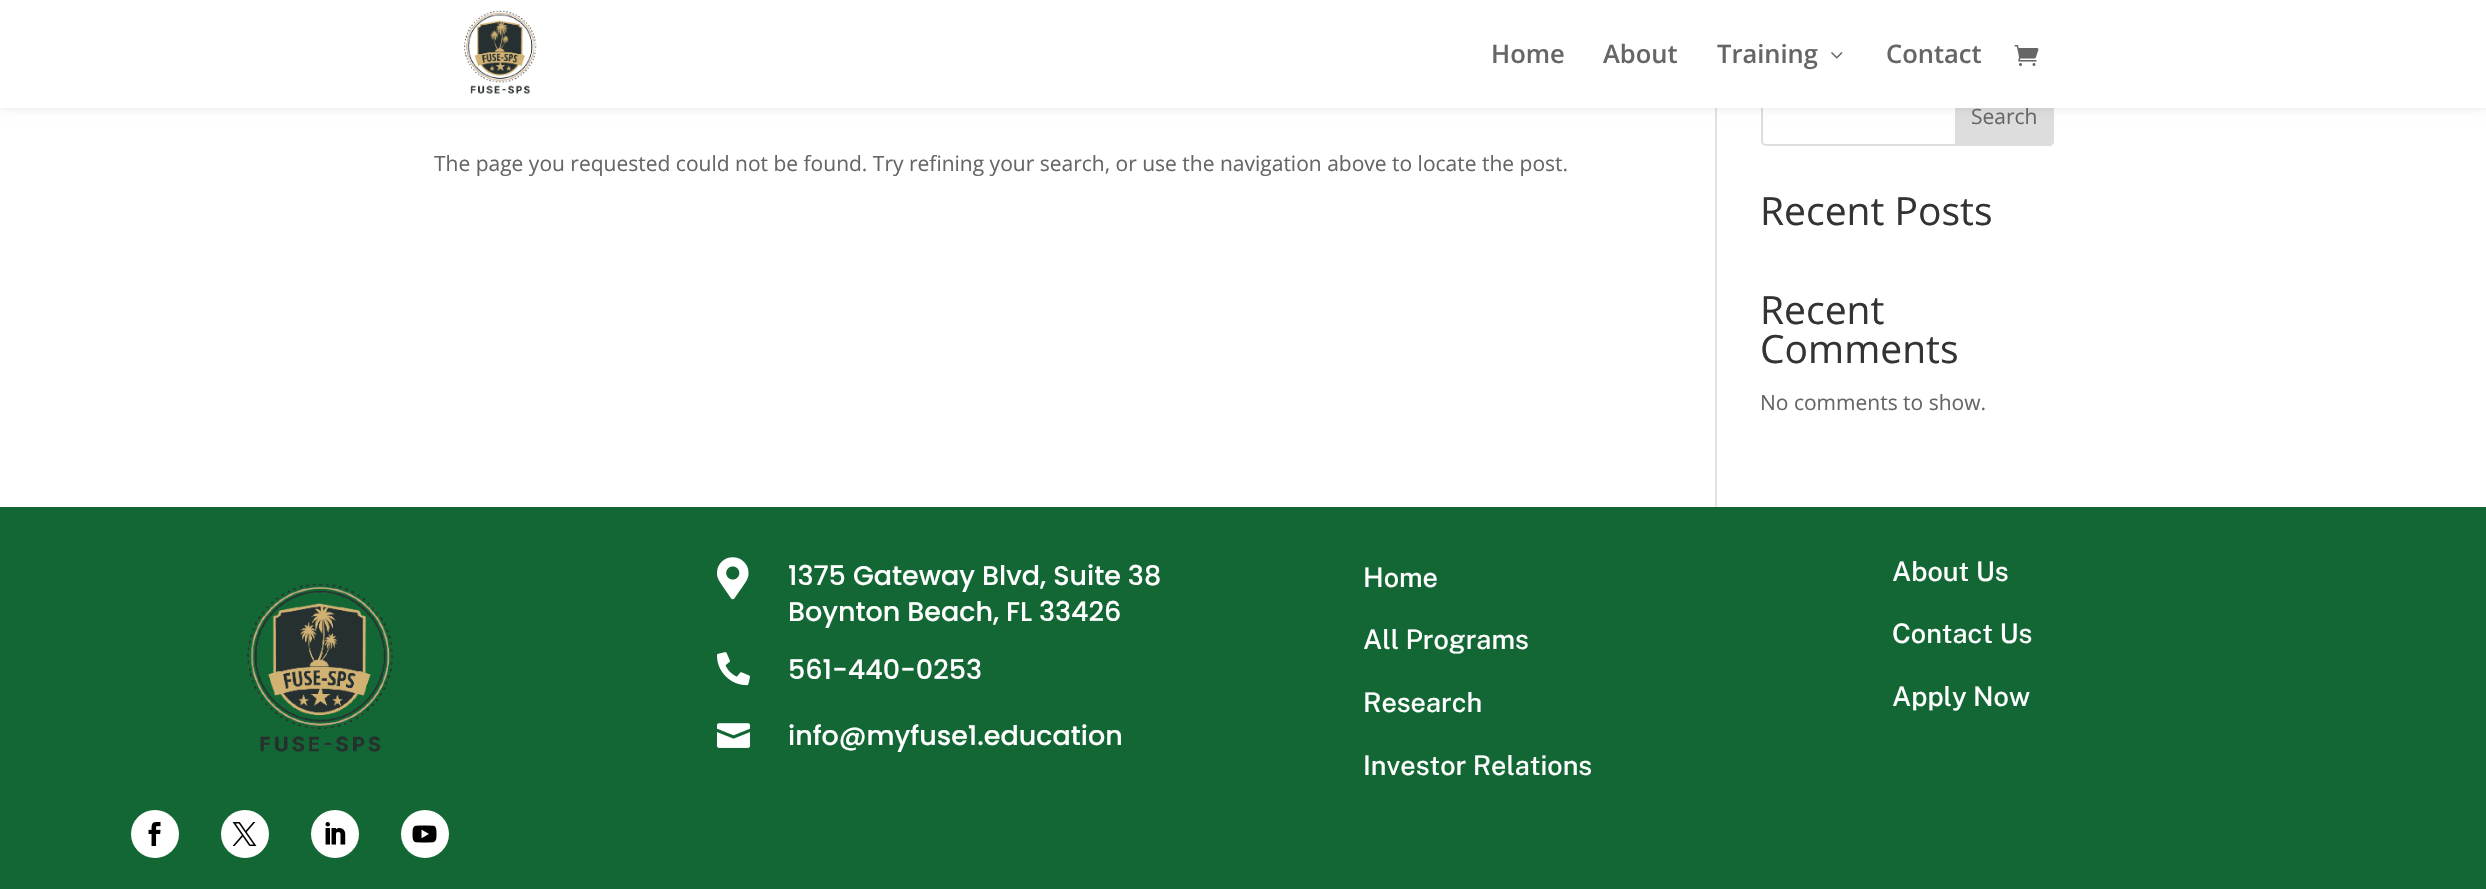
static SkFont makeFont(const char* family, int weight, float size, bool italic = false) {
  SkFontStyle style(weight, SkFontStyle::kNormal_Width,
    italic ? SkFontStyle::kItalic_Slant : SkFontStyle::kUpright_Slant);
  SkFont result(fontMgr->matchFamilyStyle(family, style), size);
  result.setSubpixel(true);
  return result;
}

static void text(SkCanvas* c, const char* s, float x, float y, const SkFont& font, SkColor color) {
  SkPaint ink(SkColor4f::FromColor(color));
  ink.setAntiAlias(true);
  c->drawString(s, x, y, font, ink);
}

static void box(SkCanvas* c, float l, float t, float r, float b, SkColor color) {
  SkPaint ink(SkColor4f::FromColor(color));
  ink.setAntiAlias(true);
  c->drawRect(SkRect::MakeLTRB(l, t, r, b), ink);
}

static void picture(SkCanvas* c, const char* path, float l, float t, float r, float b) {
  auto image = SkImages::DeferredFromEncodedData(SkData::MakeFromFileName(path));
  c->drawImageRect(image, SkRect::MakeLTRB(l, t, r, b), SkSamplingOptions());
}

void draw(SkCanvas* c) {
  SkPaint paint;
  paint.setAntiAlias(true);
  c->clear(0xffffffff);
  paint.setStyle(SkPaint::kStroke_Style);
  paint.setStrokeWidth(2);
  paint.setColor(0xffdddddd);
  c->drawRoundRect(SkRect::MakeLTRB(1762, 87, 2053, 145), 4, 4, paint);
  paint.setStyle(SkPaint::kFill_Style);
  c->drawPath(SkPathBuilder().moveTo(1956, 87).lineTo(2049, 87).cubicTo(2051, 87, 2053, 89, 2053, 91).lineTo(2053, 141).cubicTo(2053, 143, 2051, 145, 2049, 145).lineTo(1956, 145).close().detach(), paint);
  paint.setStyle(SkPaint::kStroke_Style);
  c->drawPath(SkPathBuilder().moveTo(1956, 87).lineTo(2049, 87).cubicTo(2051, 87, 2053, 89, 2053, 91).lineTo(2053, 141).cubicTo(2053, 143, 2051, 145, 2049, 145).lineTo(1956, 145).close().detach(), paint);
  box(c, 1715, 108, 1717, 507, 0xffe2e2e2);
  paint.setStyle(SkPaint::kFill_Style);
  paint.setColor(0x1a000000);
  paint.setMaskFilter(SkMaskFilter::MakeBlur(kNormal_SkBlurStyle, 5));
  c->drawRect(SkRect::MakeLTRB(0, 0, 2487, 108), paint);
  paint.setMaskFilter(nullptr);
  box(c, 0, 0, 2486, 108, 0xffffffff);
  picture(c, "img_01.png", 464, 10, 537, 94);
  SkFont face1 = makeFont("Open Sans", 600, 25.5f);
  text(c, "Home", 1491, 63, face1, 0xff666666);
  text(c, "About", 1603, 63, face1, 0xff666666);
  text(c, "Training", 1717, 63, face1, 0xff666666);
  picture(c, "img_02.png", 1831, 52, 1843, 59);
  text(c, "Contact", 1886, 63, face1, 0xff666666);
  picture(c, "img_03.png", 2014, 45, 2039, 66);
  SkFont face2 = makeFont("Open Sans", 400, 21);
  text(c, "The page you requested could not be found. Try refining your search, or use the navigation above to locate the post.", 434, 171, face2, 0xff666666);
  text(c, "Search", 1971, 124, face2, 0xff666666);
  SkFont face3 = makeFont("Open Sans", 400, 39);
  text(c, "Recent Posts", 1760, 225, face3, 0xff333333);
  text(c, "Recent", 1760, 324, face3, 0xff333333);
  text(c, "Comments", 1760, 363, face3, 0xff333333);
  text(c, "No comments to show.", 1760, 410, face2, 0xff666666);
  box(c, 0, 507, 2486, 889, 0xff136734);
  picture(c, "img_04.png", 247, 583, 394, 752);
  paint.setColor(0xffffffff);
  c->drawCircle(155, 834, 24, paint);
  picture(c, "img_05.png", 148, 822, 161, 846);
  c->drawCircle(245, 834, 24, paint);
  picture(c, "img_06.png", 232, 822, 257, 846);
  c->drawCircle(335, 834, 24, paint);
  picture(c, "img_07.png", 325, 822, 346, 845);
  c->drawCircle(425, 834, 24, paint);
  picture(c, "img_08.png", 412, 825, 437, 843);
  picture(c, "img_09.png", 717, 557, 749, 600);
  SkFont face4 = makeFont("Poppins", 500, 27);
  text(c, "1375 Gateway Blvd, Suite 38", 788, 585, face4, 0xffffffff);
  text(c, "Boynton Beach, FL 33426", 788, 621, face4, 0xffffffff);
  picture(c, "img_10.png", 717, 652, 750, 686);
  text(c, "561-440-0253", 788, 679, face4, 0xffffffff);
  picture(c, "img_11.png", 717, 723, 750, 748);
  text(c, "info@myfuse1.education", 788, 745, face4, 0xffffffff);
  SkFont face5 = makeFont("Public Sans", 500, 27);
  text(c, "Home", 1363, 587, face5, 0xffffffff);
  text(c, "All Programs", 1363, 649, face5, 0xffffffff);
  text(c, "Research", 1363, 712, face5, 0xffffffff);
  text(c, "Investor Relations", 1363, 775, face5, 0xffffffff);
  text(c, "About Us", 1892, 581, face5, 0xffffffff);
  text(c, "Contact Us", 1892, 643, face5, 0xffffffff);
  text(c, "Apply Now", 1892, 706, face5, 0xffffffff);
}
